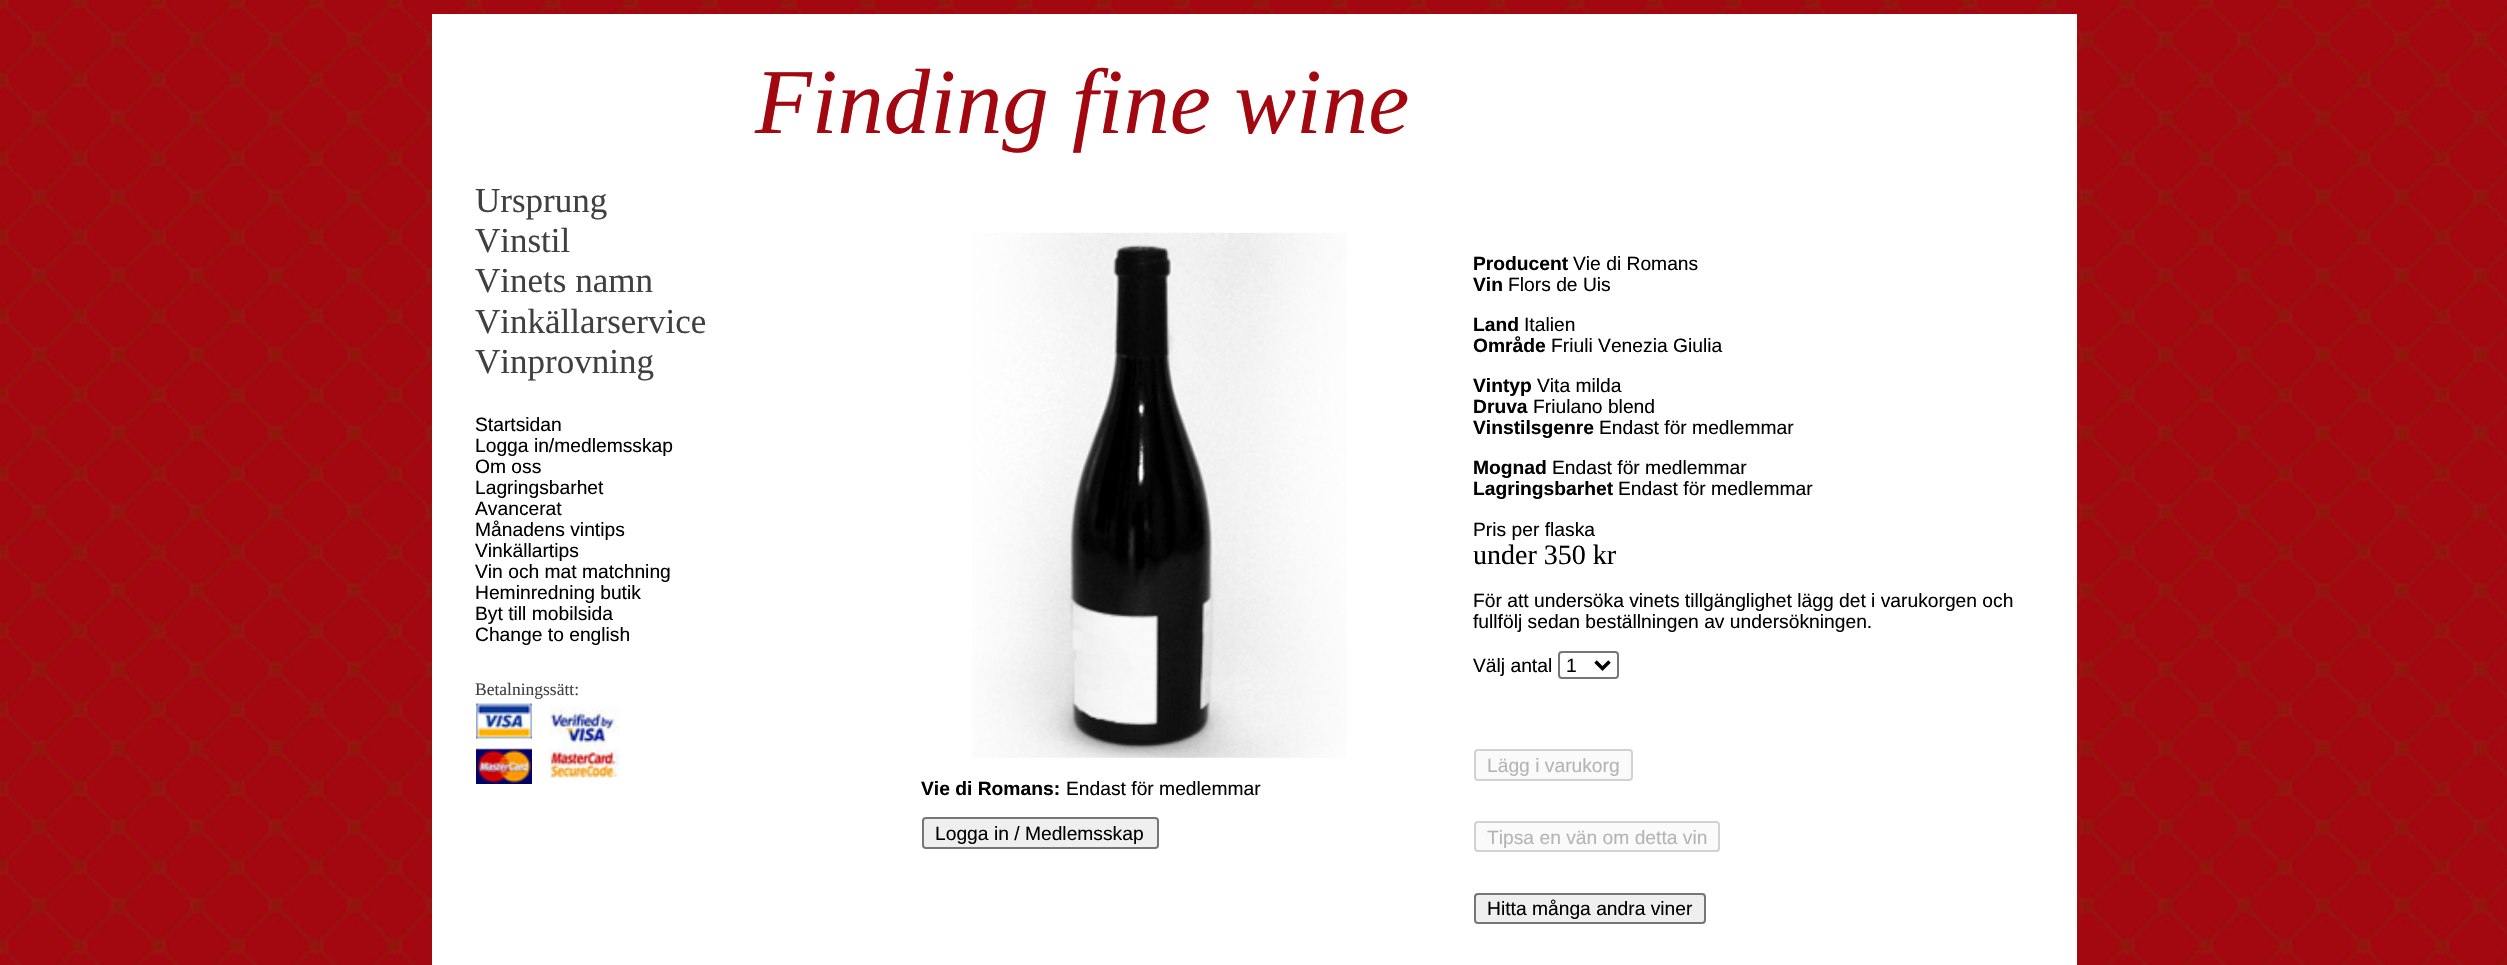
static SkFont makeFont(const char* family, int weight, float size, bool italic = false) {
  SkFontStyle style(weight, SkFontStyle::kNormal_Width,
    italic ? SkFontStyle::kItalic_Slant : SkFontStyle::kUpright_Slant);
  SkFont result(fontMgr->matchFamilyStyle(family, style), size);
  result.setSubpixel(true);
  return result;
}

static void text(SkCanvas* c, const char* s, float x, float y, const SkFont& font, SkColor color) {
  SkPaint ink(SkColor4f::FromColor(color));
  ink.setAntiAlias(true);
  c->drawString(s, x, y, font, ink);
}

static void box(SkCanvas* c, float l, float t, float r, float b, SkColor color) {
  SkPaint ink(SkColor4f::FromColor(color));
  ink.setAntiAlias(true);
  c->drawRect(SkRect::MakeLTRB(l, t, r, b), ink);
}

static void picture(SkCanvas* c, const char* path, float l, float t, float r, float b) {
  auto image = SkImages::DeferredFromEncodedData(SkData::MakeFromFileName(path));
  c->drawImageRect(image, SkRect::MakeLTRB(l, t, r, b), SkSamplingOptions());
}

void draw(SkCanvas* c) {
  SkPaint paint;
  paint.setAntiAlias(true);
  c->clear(0xffffffff);
  picture(c, "img_01.png", 0, 0, 2507, 965);
  box(c, 432, 14, 2077, 965, 0xffffffff);
  SkFont face1 = makeFont("Liberation Serif", 400, 92.75f, true);
  text(c, "Finding fine wine", 755, 133, face1, 0xffa3070f);
  SkFont face2 = makeFont("Liberation Serif", 400, 35);
  text(c, "Ursprung", 475, 212, face2, 0xff404040);
  text(c, "Vinstil", 475, 252, face2, 0xff404040);
  text(c, "Vinets namn", 475, 292, face2, 0xff404040);
  text(c, "Vinkällarservice", 475, 333, face2, 0xff404040);
  text(c, "Vinprovning", 475, 373, face2, 0xff404040);
  SkFont face3 = makeFont("Liberation Sans", 400, 19.25f);
  text(c, "Startsidan", 475, 431, face3, 0xff000000);
  text(c, "Logga in/medlemsskap", 475, 452, face3, 0xff000000);
  text(c, "Om oss", 475, 473, face3, 0xff000000);
  text(c, "Lagringsbarhet", 475, 494, face3, 0xff000000);
  text(c, "Avancerat", 475, 515, face3, 0xff000000);
  text(c, "Månadens vintips", 475, 536, face3, 0xff000000);
  text(c, "Vinkällartips", 475, 557, face3, 0xff000000);
  text(c, "Vin och mat matchning", 475, 578, face3, 0xff000000);
  text(c, "Heminredning butik", 475, 599, face3, 0xff000000);
  text(c, "Byt till mobilsida", 475, 620, face3, 0xff000000);
  text(c, "Change to english", 475, 641, face3, 0xff000000);
  SkFont face4 = makeFont("Liberation Serif", 400, 17.5f);
  text(c, "Betalningssätt:", 475, 695, face4, 0xff404040);
  picture(c, "img_02.png", 476, 703, 532, 784);
  picture(c, "img_03.png", 549, 707, 620, 778);
  picture(c, "img_04.png", 972, 232, 1347, 758);
  SkFont face5 = makeFont("Liberation Sans", 700, 19.25f);
  text(c, "Vie di Romans:", 921, 795, face5, 0xff000000);
  text(c, "Endast för medlemmar", 1066, 795, face3, 0xff000000);
  paint.setColor(0xffefefef);
  c->drawRoundRect(SkRect::MakeLTRB(923, 818, 1158, 848), 3, 3, paint);
  paint.setStyle(SkPaint::kStroke_Style);
  paint.setStrokeWidth(2);
  paint.setColor(0xff767676);
  c->drawRoundRect(SkRect::MakeLTRB(923, 818, 1158, 848), 3, 3, paint);
  text(c, "Logga in / Medlemsskap", 935, 840, face3, 0xff000000);
  text(c, "Producent", 1473, 270, face5, 0xff000000);
  text(c, "Vie di Romans", 1573, 270, face3, 0xff000000);
  text(c, "Vin", 1473, 291, face5, 0xff000000);
  text(c, "Flors de Uis", 1508, 291, face3, 0xff000000);
  text(c, "Land", 1473, 331, face5, 0xff000000);
  text(c, "Italien", 1524, 331, face3, 0xff000000);
  text(c, "Område", 1473, 352, face5, 0xff000000);
  text(c, "Friuli Venezia Giulia", 1551, 352, face3, 0xff000000);
  text(c, "Vintyp", 1473, 392, face5, 0xff000000);
  text(c, "Vita milda", 1537, 392, face3, 0xff000000);
  text(c, "Druva", 1473, 413, face5, 0xff000000);
  text(c, "Friulano blend", 1533, 413, face3, 0xff000000);
  text(c, "Vinstilsgenre", 1473, 434, face5, 0xff000000);
  text(c, "Endast för medlemmar", 1599, 434, face3, 0xff000000);
  text(c, "Mognad", 1473, 474, face5, 0xff000000);
  text(c, "Endast för medlemmar", 1552, 474, face3, 0xff000000);
  text(c, "Lagringsbarhet", 1473, 495, face5, 0xff000000);
  text(c, "Endast för medlemmar", 1618, 495, face3, 0xff000000);
  text(c, "Pris per flaska", 1473, 536, face3, 0xff000000);
  SkFont face6 = makeFont("Liberation Serif", 400, 28);
  text(c, "under 350 kr", 1473, 564, face6, 0xff000000);
  text(c, "För att undersöka vinets tillgänglighet lägg det i varukorgen och", 1473, 607, face3, 0xff000000);
  text(c, "fullfölj sedan beställningen av undersökningen.", 1473, 628, face3, 0xff000000);
  text(c, "Välj antal", 1473, 672, face3, 0xff000000);
  c->drawRoundRect(SkRect::MakeLTRB(1559, 652, 1618, 678), 3, 3, paint);
  paint.setStrokeWidth(3.5f);
  paint.setColor(0xff000000);
  c->drawPath(SkPathBuilder().moveTo(1595.5f, 661.5f).lineTo(1602.5f, 668.5f).lineTo(1609.5f, 661.5f).detach(), paint);
  text(c, "1", 1566, 672, face3, 0xff000000);
  paint.setStyle(SkPaint::kFill_Style);
  paint.setColor(0xfffafafa);
  c->drawRoundRect(SkRect::MakeLTRB(1475, 750, 1632, 780), 3, 3, paint);
  paint.setStyle(SkPaint::kStroke_Style);
  paint.setStrokeWidth(2);
  paint.setColor(0xffd2d2d2);
  c->drawRoundRect(SkRect::MakeLTRB(1475, 750, 1632, 780), 3, 3, paint);
  text(c, "Lägg i varukorg", 1487, 772, face3, 0xffb4b4b4);
  paint.setStyle(SkPaint::kFill_Style);
  paint.setColor(0xfffafafa);
  c->drawRoundRect(SkRect::MakeLTRB(1475, 822, 1719, 851), 3, 3, paint);
  paint.setStyle(SkPaint::kStroke_Style);
  paint.setColor(0xffd2d2d2);
  c->drawRoundRect(SkRect::MakeLTRB(1475, 822, 1719, 851), 3, 3, paint);
  text(c, "Tipsa en vän om detta vin", 1487, 844, face3, 0xffb4b4b4);
  paint.setStyle(SkPaint::kFill_Style);
  paint.setColor(0xffefefef);
  c->drawRoundRect(SkRect::MakeLTRB(1475, 894, 1705, 923), 3, 3, paint);
  paint.setStyle(SkPaint::kStroke_Style);
  paint.setColor(0xff767676);
  c->drawRoundRect(SkRect::MakeLTRB(1475, 894, 1705, 923), 3, 3, paint);
  text(c, "Hitta många andra viner", 1487, 915, face3, 0xff000000);
}
